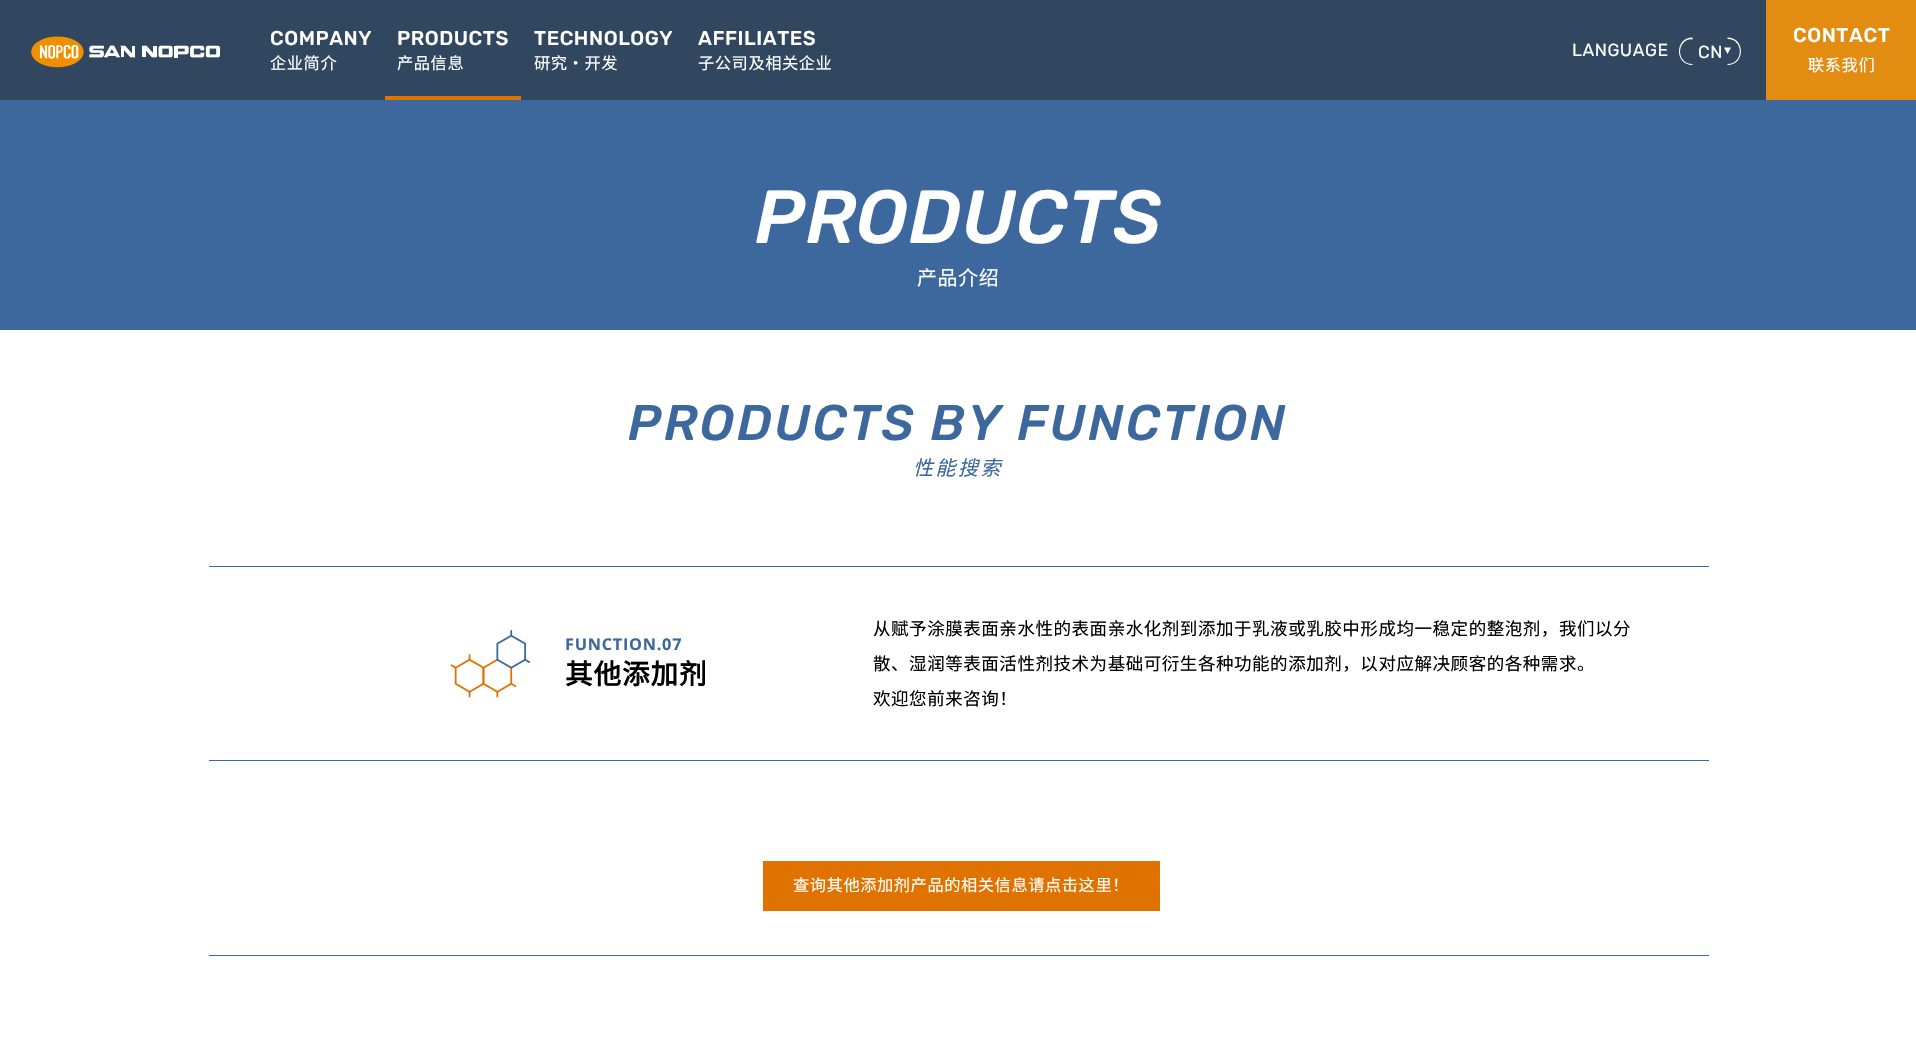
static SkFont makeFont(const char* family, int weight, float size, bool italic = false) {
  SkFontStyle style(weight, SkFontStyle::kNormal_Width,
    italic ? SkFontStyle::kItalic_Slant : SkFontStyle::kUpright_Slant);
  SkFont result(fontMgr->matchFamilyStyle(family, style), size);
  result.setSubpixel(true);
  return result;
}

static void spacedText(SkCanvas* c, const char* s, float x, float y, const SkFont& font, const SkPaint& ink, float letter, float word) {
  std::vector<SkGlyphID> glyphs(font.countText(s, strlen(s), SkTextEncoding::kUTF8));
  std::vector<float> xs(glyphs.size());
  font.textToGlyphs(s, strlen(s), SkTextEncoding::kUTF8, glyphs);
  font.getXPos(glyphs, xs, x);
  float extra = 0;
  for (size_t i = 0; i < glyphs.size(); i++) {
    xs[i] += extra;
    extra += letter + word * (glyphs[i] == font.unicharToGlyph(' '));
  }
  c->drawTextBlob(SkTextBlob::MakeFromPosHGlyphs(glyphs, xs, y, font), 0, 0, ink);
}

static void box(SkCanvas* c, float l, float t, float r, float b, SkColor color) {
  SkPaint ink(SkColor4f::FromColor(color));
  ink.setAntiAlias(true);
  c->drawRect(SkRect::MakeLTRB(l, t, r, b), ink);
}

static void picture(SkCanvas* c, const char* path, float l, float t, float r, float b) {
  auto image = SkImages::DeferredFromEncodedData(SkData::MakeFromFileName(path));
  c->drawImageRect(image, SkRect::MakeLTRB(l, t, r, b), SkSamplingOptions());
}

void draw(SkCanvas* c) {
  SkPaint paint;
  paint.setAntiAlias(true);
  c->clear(0xffffffff);
  box(c, 0, 0, 1766, 100, 0xff30475f);
  picture(c, "img_01.png", 31, 36, 220, 68);
  SkFont face1 = makeFont("Rubik", 500, 20);
  paint.setColor(0xffffffff);
  spacedText(c, "COMPANY", 270, 45, face1, paint, 0.55f, 0);
  SkFont face2 = makeFont("Noto Sans CJK SC", 400, 16.25f);
  spacedText(c, "企业简介", 270, 69, face2, paint, 0.55f, 0);
  box(c, 385, 96, 521, 100, 0xffe07300);
  spacedText(c, "PRODUCTS", 397, 45, face1, paint, 0.55f, 0);
  spacedText(c, "产品信息", 397, 69, face2, paint, 0.55f, 0);
  spacedText(c, "TECHNOLOGY", 534, 45, face1, paint, 0.55f, 0);
  spacedText(c, "研究・开发", 534, 69, face2, paint, 0.55f, 0);
  spacedText(c, "AFFILIATES", 698, 45, face1, paint, 0.55f, 0);
  spacedText(c, "子公司及相关企业", 698, 69, face2, paint, 0.55f, 0);
  SkFont face3 = makeFont("Rubik", 400, 17.5f);
  spacedText(c, "LANGUAGE", 1572, 56, face3, paint, 0.55f, 0);
  c->drawPath(SkPathBuilder(SkPathFillType::kEvenOdd).moveTo(1692.5f, 37.5f).lineTo(1692.5f, 65).cubicTo(1674.5f, 65, 1674.5f, 37.5f, 1692.5f, 37.5f).close().moveTo(1692.5f, 39).lineTo(1692.5f, 64).cubicTo(1676, 64, 1676, 39, 1692.5f, 39).close().detach(), paint);
  spacedText(c, "CN", 1698, 58, face3, paint, 0.55f, 0);
  c->drawPath(SkPathBuilder().moveTo(1724, 47.5f).lineTo(1731, 47.5f).lineTo(1727.5f, 54).close().detach(), paint);
  c->drawPath(SkPathBuilder(SkPathFillType::kEvenOdd).moveTo(1727.5f, 37.5f).lineTo(1727.5f, 65).cubicTo(1745.5f, 65, 1745.5f, 37.5f, 1727.5f, 37.5f).close().moveTo(1727.5f, 39).lineTo(1727.5f, 64).cubicTo(1744, 64, 1744, 39, 1727.5f, 39).close().detach(), paint);
  box(c, 1766, 0, 1916, 100, 0xffe38c12);
  spacedText(c, "CONTACT", 1793, 42, face1, paint, 0.55f, 0);
  spacedText(c, "联系我们", 1808, 71, face2, paint, 0.55f, 0);
  box(c, 0, 100, 1916, 330, 0xff3d689e);
  SkFont face4 = makeFont("Rubik", 500, 75, true);
  spacedText(c, "PRODUCTS", 755, 243, face4, paint, 0.55f, 0);
  SkFont face5 = makeFont("Noto Sans CJK SC", 400, 20);
  spacedText(c, "产品介绍", 917, 285, face5, paint, 0.55f, 0);
  SkFont face6 = makeFont("Rubik", 500, 50, true);
  paint.setColor(0xff3d689e);
  spacedText(c, "PRODUCTS BY FUNCTION", 628, 440, face6, paint, 2.5f, 0);
  SkFont face7 = makeFont("Noto Sans CJK SC", 400, 20, true);
  spacedText(c, "性能搜索", 913, 475, face7, paint, 2.5f, 0);
  box(c, 209, 566, 1709, 567, 0xff3d689e);
  box(c, 209, 760, 1709, 761, 0xff3d689e);
  picture(c, "img_02.png", 450, 630, 531, 698);
  SkFont face8 = makeFont("Open Sans", 700, 16.25f);
  spacedText(c, "FUNCTION.07", 565, 650, face8, paint, 0.75f, 0);
  SkFont face9 = makeFont("Noto Sans CJK SC", 700, 27.5f);
  paint.setColor(0xff000000);
  spacedText(c, "其他添加剂", 565, 684, face9, paint, 1, 0);
  SkFont face10 = makeFont("Noto Sans CJK SC", 400, 17.5f);
  spacedText(c, "从赋予涂膜表面亲水性的表面亲水化剂到添加于乳液或乳胶中形成均一稳定的整泡剂，我们以分", 873, 635, face10, paint, 0.55f, 0);
  spacedText(c, "散、湿润等表面活性剂技术为基础可衍生各种功能的添加剂，以对应解决顾客的各种需求。", 873, 670, face10, paint, 0.55f, 0);
  spacedText(c, "欢迎您前来咨询！", 873, 705, face10, paint, 0.55f, 0);
  box(c, 209, 955, 1709, 956, 0xff3d689e);
  box(c, 763, 861, 1160, 911, 0xffe07300);
  paint.setColor(0xffffffff);
  spacedText(c, "查询其他添加剂产品的相关信息请点击这里！", 793, 891, face2, paint, 0.55f, 0);
}
